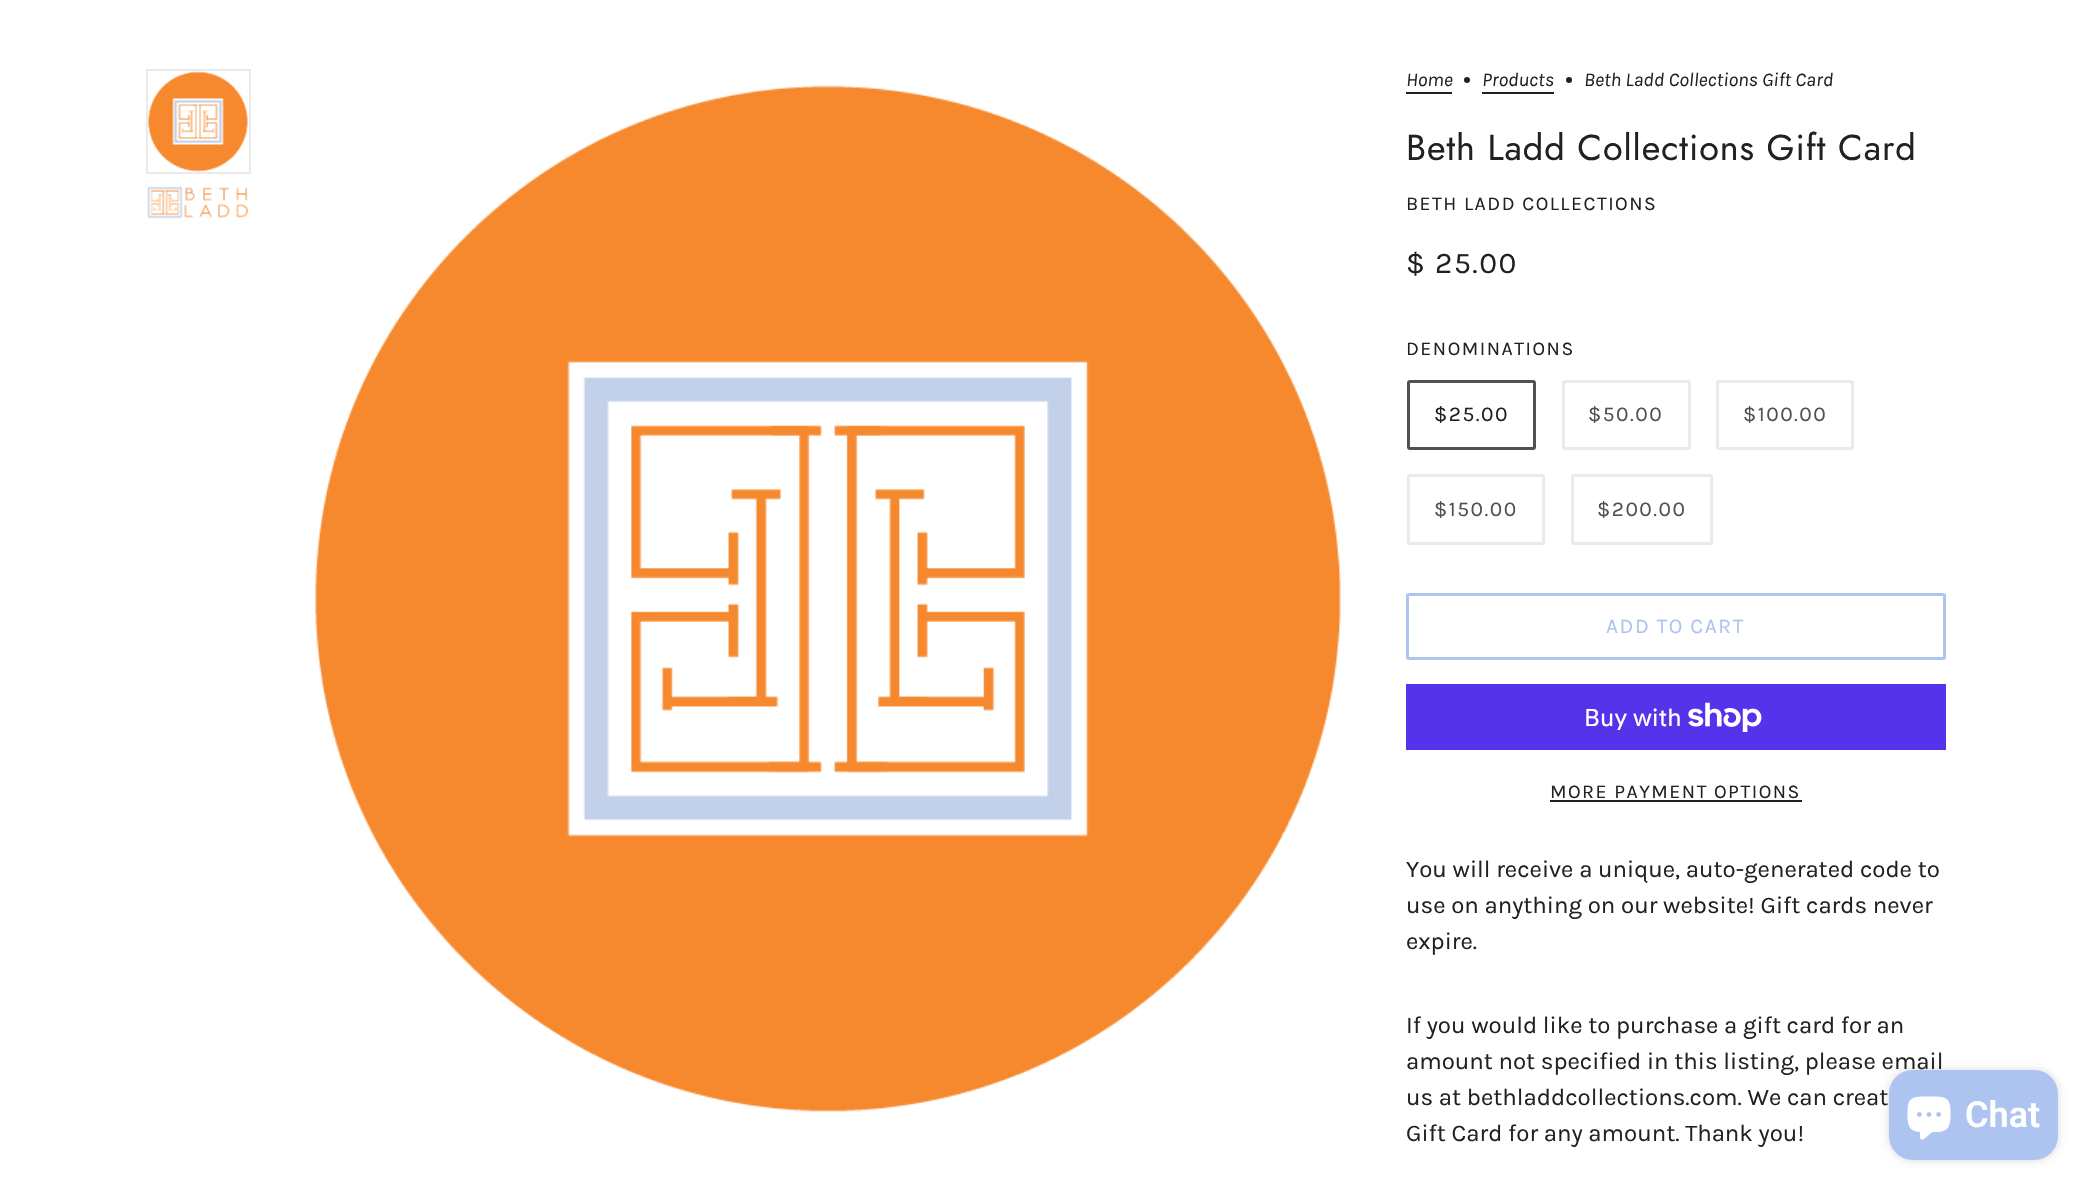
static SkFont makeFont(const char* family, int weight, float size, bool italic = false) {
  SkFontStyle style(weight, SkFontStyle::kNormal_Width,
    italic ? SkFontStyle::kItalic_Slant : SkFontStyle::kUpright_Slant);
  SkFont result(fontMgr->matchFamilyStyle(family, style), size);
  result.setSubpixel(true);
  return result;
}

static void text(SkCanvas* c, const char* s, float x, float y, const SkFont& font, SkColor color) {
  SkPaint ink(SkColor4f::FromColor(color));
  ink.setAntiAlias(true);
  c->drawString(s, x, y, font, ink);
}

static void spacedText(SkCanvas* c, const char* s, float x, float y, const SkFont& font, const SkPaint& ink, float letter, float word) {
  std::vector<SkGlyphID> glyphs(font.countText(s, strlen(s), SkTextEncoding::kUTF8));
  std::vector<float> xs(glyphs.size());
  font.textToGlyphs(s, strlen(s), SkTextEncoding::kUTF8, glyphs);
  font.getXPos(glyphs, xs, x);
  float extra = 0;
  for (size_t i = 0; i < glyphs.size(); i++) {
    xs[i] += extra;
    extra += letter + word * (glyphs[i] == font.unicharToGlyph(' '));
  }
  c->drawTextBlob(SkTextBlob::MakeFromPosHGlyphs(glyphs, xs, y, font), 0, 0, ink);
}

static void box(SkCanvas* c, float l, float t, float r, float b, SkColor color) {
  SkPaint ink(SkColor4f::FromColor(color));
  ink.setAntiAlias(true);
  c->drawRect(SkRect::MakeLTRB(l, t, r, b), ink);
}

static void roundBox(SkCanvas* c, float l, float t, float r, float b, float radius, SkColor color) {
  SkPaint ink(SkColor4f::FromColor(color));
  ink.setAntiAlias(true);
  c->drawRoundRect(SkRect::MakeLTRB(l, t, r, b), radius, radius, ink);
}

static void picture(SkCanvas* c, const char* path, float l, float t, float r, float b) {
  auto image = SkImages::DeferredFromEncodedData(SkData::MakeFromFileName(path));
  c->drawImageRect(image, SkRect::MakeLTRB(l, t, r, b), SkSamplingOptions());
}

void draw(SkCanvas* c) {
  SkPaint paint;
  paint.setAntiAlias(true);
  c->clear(0xffffffff);
  paint.setStyle(SkPaint::kStroke_Style);
  paint.setStrokeWidth(2);
  paint.setColor(0xffeaeaea);
  c->drawRect(SkRect::MakeLTRB(147, 70, 250, 173), paint);
  picture(c, "img_01.png", 148, 71, 248, 172);
  picture(c, "img_02.png", 147, 186, 249, 219);
  picture(c, "img_03.png", 315, 85, 1341, 1112);
  SkFont face1 = makeFont("Karla", 400, 19.5f, true);
  text(c, "Home", 1406, 86, face1, 0xff212121);
  box(c, 1406, 92, 1452, 94, 0xff212121);
  paint.setStyle(SkPaint::kFill_Style);
  paint.setColor(0xff212121);
  c->drawCircle(1467, 80, 3, paint);
  text(c, "Products", 1482, 86, face1, 0xff212121);
  box(c, 1482, 92, 1554, 94, 0xff212121);
  c->drawCircle(1569, 80, 3, paint);
  text(c, "Beth Ladd Collections Gift Card", 1584, 86, face1, 0xff212121);
  SkFont face2 = makeFont("Jost", 400, 36);
  spacedText(c, "Beth Ladd Collections Gift Card", 1406, 160, face2, paint, 0.9f, 0);
  SkFont face3 = makeFont("Karla", 400, 19.5f);
  spacedText(c, "BETH LADD COLLECTIONS", 1406, 210, face3, paint, 1.5f, 0);
  SkFont face4 = makeFont("Karla", 400, 30);
  spacedText(c, "$ 25.00", 1406, 273, face4, paint, 1.5f, 0);
  spacedText(c, "DENOMINATIONS", 1406, 355, face3, paint, 1.5f, 0);
  paint.setStyle(SkPaint::kStroke_Style);
  paint.setStrokeWidth(3);
  paint.setColor(0xff515151);
  c->drawRoundRect(SkRect::MakeLTRB(1408.5f, 381.5f, 1534.5f, 448.5f), 1.5f, 1.5f, paint);
  SkFont face5 = makeFont("Karla", 400, 21);
  paint.setStyle(SkPaint::kFill_Style);
  paint.setColor(0xff212121);
  spacedText(c, "$25.00", 1434, 421, face5, paint, 1.5f, 0);
  paint.setStyle(SkPaint::kStroke_Style);
  paint.setColor(0xffeaeaea);
  c->drawRoundRect(SkRect::MakeLTRB(1563.5f, 381.5f, 1689.5f, 448.5f), 1.5f, 1.5f, paint);
  paint.setStyle(SkPaint::kFill_Style);
  paint.setColor(0xff515151);
  spacedText(c, "$50.00", 1588, 421, face5, paint, 1.5f, 0);
  paint.setStyle(SkPaint::kStroke_Style);
  paint.setColor(0xffeaeaea);
  c->drawRoundRect(SkRect::MakeLTRB(1717.5f, 381.5f, 1852.5f, 448.5f), 1.5f, 1.5f, paint);
  paint.setStyle(SkPaint::kFill_Style);
  paint.setColor(0xff515151);
  spacedText(c, "$100.00", 1743, 421, face5, paint, 1.5f, 0);
  paint.setStyle(SkPaint::kStroke_Style);
  paint.setColor(0xffeaeaea);
  c->drawRoundRect(SkRect::MakeLTRB(1408.5f, 475.5f, 1543.5f, 543.5f), 1.5f, 1.5f, paint);
  paint.setStyle(SkPaint::kFill_Style);
  paint.setColor(0xff515151);
  spacedText(c, "$150.00", 1434, 516, face5, paint, 1.5f, 0);
  paint.setStyle(SkPaint::kStroke_Style);
  paint.setColor(0xffeaeaea);
  c->drawRoundRect(SkRect::MakeLTRB(1572.5f, 475.5f, 1711.5f, 543.5f), 1.5f, 1.5f, paint);
  paint.setStyle(SkPaint::kFill_Style);
  paint.setColor(0xff515151);
  spacedText(c, "$200.00", 1597, 516, face5, paint, 1.5f, 0);
  paint.setStyle(SkPaint::kStroke_Style);
  paint.setColor(0xffadc4f1);
  c->drawRoundRect(SkRect::MakeLTRB(1407.5f, 594.5f, 1944.5f, 658.5f), 1.5f, 1.5f, paint);
  paint.setStyle(SkPaint::kFill_Style);
  spacedText(c, "ADD TO CART", 1606, 633, face5, paint, 1.5f, 0);
  box(c, 1406, 684, 1946, 750, 0xff5433eb);
  SkFont face6 = makeFont("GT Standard", 400, 24);
  text(c, "Buy with", 1584, 726, face6, 0xffffffff);
  picture(c, "img_04.png", 1688, 702, 1762, 732);
  paint.setColor(0xff212121);
  spacedText(c, "MORE PAYMENT OPTIONS", 1550, 798, face3, paint, 1.5f, 0);
  box(c, 1550, 800, 1802, 802, 0xff212121);
  SkFont face7 = makeFont("Karla", 400, 24);
  text(c, "You will receive a unique, auto-generated code to", 1406, 877, face7, 0xff212121);
  text(c, "use on anything on our website! Gift cards never", 1406, 913, face7, 0xff212121);
  text(c, "expire.", 1406, 949, face7, 0xff212121);
  text(c, "If you would like to purchase a gift card for an", 1406, 1033, face7, 0xff212121);
  text(c, "amount not specified in this listing, please email", 1406, 1069, face7, 0xff212121);
  text(c, "us at bethladdcollections.com. We can creat", 1406, 1105, face7, 0xff212121);
  text(c, "Gift Card for any amount. Thank you!", 1406, 1141, face7, 0xff212121);
  paint.setColor(0x26000000);
  paint.setMaskFilter(SkMaskFilter::MakeBlur(kNormal_SkBlurStyle, 4));
  c->drawRoundRect(SkRect::MakeLTRB(1889, 1070, 2058, 1160), 24, 24, paint);
  paint.setMaskFilter(nullptr);
  roundBox(c, 1889, 1070, 2058, 1160, 24, 0xffadc4f1);
  picture(c, "img_05.png", 1907, 1096, 1951, 1140);
  SkFont face8 = makeFont("Roboto", 600, 36);
  text(c, "Chat", 1965, 1127, face8, 0xffffffff);
}
